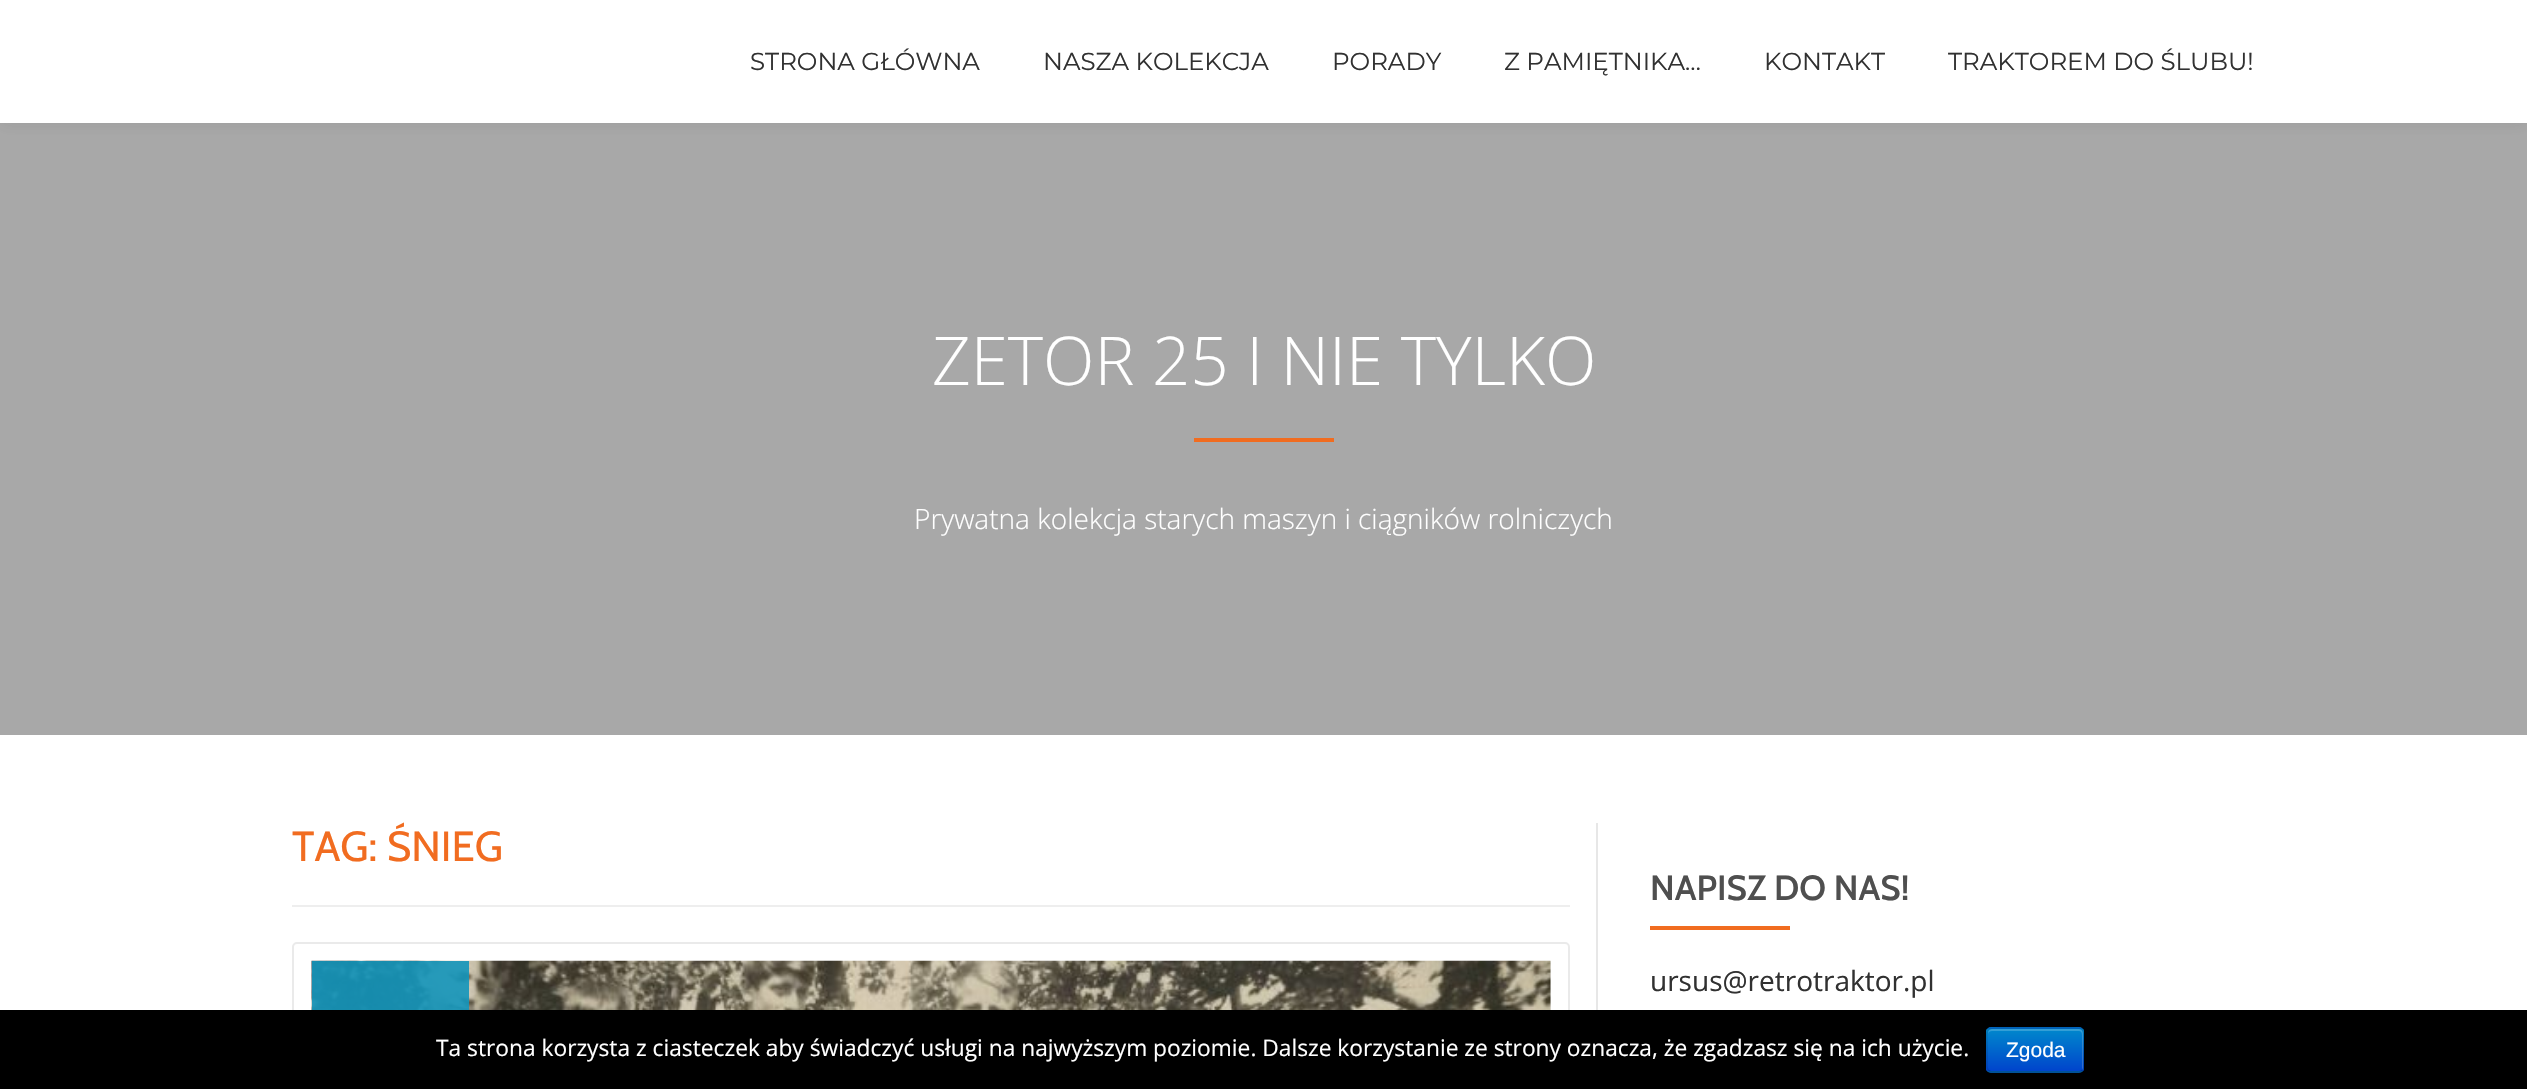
static SkFont makeFont(const char* family, int weight, float size, bool italic = false) {
  SkFontStyle style(weight, SkFontStyle::kNormal_Width,
    italic ? SkFontStyle::kItalic_Slant : SkFontStyle::kUpright_Slant);
  SkFont result(fontMgr->matchFamilyStyle(family, style), size);
  result.setSubpixel(true);
  return result;
}

static void text(SkCanvas* c, const char* s, float x, float y, const SkFont& font, SkColor color) {
  SkPaint ink(SkColor4f::FromColor(color));
  ink.setAntiAlias(true);
  c->drawString(s, x, y, font, ink);
}

static void box(SkCanvas* c, float l, float t, float r, float b, SkColor color) {
  SkPaint ink(SkColor4f::FromColor(color));
  ink.setAntiAlias(true);
  c->drawRect(SkRect::MakeLTRB(l, t, r, b), ink);
}

static void roundBox(SkCanvas* c, float l, float t, float r, float b, float radius, SkColor color) {
  SkPaint ink(SkColor4f::FromColor(color));
  ink.setAntiAlias(true);
  c->drawRoundRect(SkRect::MakeLTRB(l, t, r, b), radius, radius, ink);
}

static void picture(SkCanvas* c, const char* path, float l, float t, float r, float b) {
  auto image = SkImages::DeferredFromEncodedData(SkData::MakeFromFileName(path));
  c->drawImageRect(image, SkRect::MakeLTRB(l, t, r, b), SkSamplingOptions());
}

void draw(SkCanvas* c) {
  SkPaint paint;
  paint.setAntiAlias(true);
  c->clear(0xffffffff);
  box(c, 0, 123, 2527, 735, 0xffa8a8a8);
  paint.setColor(0x14323232);
  paint.setMaskFilter(SkMaskFilter::MakeBlur(kNormal_SkBlurStyle, 7));
  c->drawRect(SkRect::MakeLTRB(0, 4, 2527, 126), paint);
  paint.setMaskFilter(nullptr);
  box(c, 0, 0, 2527, 123, 0xffffffff);
  SkFont face1 = makeFont("Montserrat", 400, 24.5f);
  text(c, "STRONA GŁÓWNA", 750, 70, face1, 0xff313131);
  text(c, "NASZA KOLEKCJA", 1043, 70, face1, 0xff313131);
  text(c, "PORADY", 1332, 70, face1, 0xff313131);
  text(c, "Z PAMIĘTNIKA…", 1504, 70, face1, 0xff313131);
  text(c, "KONTAKT", 1764, 70, face1, 0xff313131);
  text(c, "TRAKTOREM DO ŚLUBU!", 1948, 70, face1, 0xff313131);
  SkFont face2 = makeFont("Open Sans", 300, 67.25f);
  text(c, "ZETOR 25 I NIE TYLKO", 932, 385, face2, 0xffffffff);
  box(c, 1194, 438, 1334, 442, 0xfff16c20);
  SkFont face3 = makeFont("Open Sans", 300, 28);
  text(c, "Prywatna kolekcja starych maszyn i ciągników rolniczych", 914, 529, face3, 0xffffffff);
  box(c, 292, 905, 1570, 907, 0xffeeeeee);
  SkFont face4 = makeFont("Cabin", 400, 42);
  text(c, "TAG: ŚNIEG", 292, 861, face4, 0xfff16c20);
  paint.setStyle(SkPaint::kStroke_Style);
  paint.setStrokeWidth(2);
  paint.setColor(0xffeaeaea);
  c->drawRoundRect(SkRect::MakeLTRB(293, 943, 1569, 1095), 4, 4, paint);
  box(c, 1550, 961, 1551, 1010, 0xffeaeaea);
  picture(c, "img_01.png", 311, 960, 1551, 1010);
  box(c, 312, 961, 469, 1010, 0xe61395ba);
  box(c, 1596, 823, 1598, 1010, 0xffe7e7e7);
  SkFont face5 = makeFont("Cabin", 600, 35);
  text(c, "NAPISZ DO NAS!", 1650, 900, face5, 0xff4f4f4f);
  box(c, 1650, 926, 1790, 930, 0xfff16c20);
  SkFont face6 = makeFont("Open Sans", 400, 28);
  text(c, "ursus@retrotraktor.pl", 1650, 991, face6, 0xff313131);
  box(c, 0, 1010, 2527, 1089, 0xff000000);
  SkFont face7 = makeFont("Open Sans", 400, 22.75f);
  text(c, "Ta strona korzysta z ciasteczek aby świadczyć usługi na najwyższym poziomie. Dalsze korzystanie ze strony oznacza, że zgadzasz się na ich użycie.", 436, 1056, face7, 0xffffffff);
  roundBox(c, 1986, 1027, 2084, 1073, 5, 0xff006dcc);
  c->save();
  c->clipPath(SkPathBuilder().moveTo(1991, 1027).lineTo(2079, 1027).cubicTo(2082, 1027, 2084, 1029, 2084, 1032).lineTo(2084, 1068).cubicTo(2084, 1071, 2082, 1073, 2079, 1073).lineTo(1991, 1073).cubicTo(1988, 1073, 1986, 1071, 1986, 1068).lineTo(1986, 1032).cubicTo(1986, 1029, 1988, 1027, 1991, 1027).close().detach(), true);
  paint.setStyle(SkPaint::kFill_Style);
  {
    const SkColor colors[] = {0xff0088cc, 0xff0044cc};
    const float stops[] = {0, 1};
    const SkPoint ends[] = {{2035, 1029}, {2035, 1071}};
    paint.setShader(SkGradientShader::MakeLinear(ends, colors, stops, 2, SkTileMode::kClamp));
    paint.setAlpha(255);
  }
  c->drawRect(SkRect::MakeLTRB(1986, 1029, 2084, 1071), paint);
  c->restore();
  paint.setShader(nullptr);
  paint.setColor(0x33ffffff);
  c->drawPath(SkPathBuilder().moveTo(1992, 1031).lineTo(2079, 1031).cubicTo(2083, 1031, 2082, 1037, 2082, 1040).lineTo(2082, 1070).cubicTo(2083, 1069, 2083, 1068, 2083, 1067).lineTo(2083, 1033).cubicTo(2083, 1031, 2081, 1029, 2079, 1029).lineTo(1992, 1029).cubicTo(1990, 1029, 1988, 1031, 1988, 1033).lineTo(1988, 1034).cubicTo(1988, 1032, 1990, 1031, 1992, 1031).close().detach(), paint);
  paint.setStyle(SkPaint::kStroke_Style);
  paint.setStrokeWidth(1.8f);
  paint.setColor(0x40000000);
  c->drawPath(SkPathBuilder().moveTo(2082, 1070.5f).cubicTo(2081.5f, 1071.5f, 2080, 1072, 2079, 1072).lineTo(1991.5f, 1072).cubicTo(1990.5f, 1072, 1989, 1071.5f, 1988.5f, 1070.5f).detach(), paint);
  paint.setColor(0x1a000000);
  c->drawPath(SkPathBuilder().moveTo(1988.5f, 1070.5f).cubicTo(1986, 1068.5f, 1987, 1064, 1987, 1061.5f).lineTo(1987, 1050).cubicTo(1987, 1026, 1982.5f, 1028, 2006, 1028).lineTo(2064.5f, 1028).cubicTo(2088, 1028, 2083.5f, 1026, 2083.5f, 1050).lineTo(2083.5f, 1061.5f).cubicTo(2083.5f, 1064, 2084.5f, 1068.5f, 2082, 1070.5f).detach(), paint);
  SkFont face8 = makeFont("Liberation Sans", 400, 21);
  text(c, "Zgoda", 2006, 1057, face8, 0xffffffff);
}
